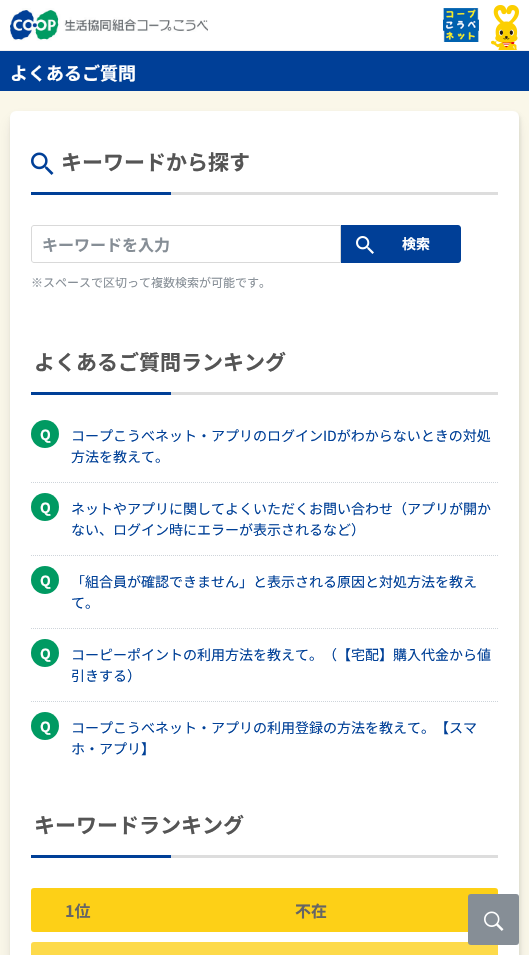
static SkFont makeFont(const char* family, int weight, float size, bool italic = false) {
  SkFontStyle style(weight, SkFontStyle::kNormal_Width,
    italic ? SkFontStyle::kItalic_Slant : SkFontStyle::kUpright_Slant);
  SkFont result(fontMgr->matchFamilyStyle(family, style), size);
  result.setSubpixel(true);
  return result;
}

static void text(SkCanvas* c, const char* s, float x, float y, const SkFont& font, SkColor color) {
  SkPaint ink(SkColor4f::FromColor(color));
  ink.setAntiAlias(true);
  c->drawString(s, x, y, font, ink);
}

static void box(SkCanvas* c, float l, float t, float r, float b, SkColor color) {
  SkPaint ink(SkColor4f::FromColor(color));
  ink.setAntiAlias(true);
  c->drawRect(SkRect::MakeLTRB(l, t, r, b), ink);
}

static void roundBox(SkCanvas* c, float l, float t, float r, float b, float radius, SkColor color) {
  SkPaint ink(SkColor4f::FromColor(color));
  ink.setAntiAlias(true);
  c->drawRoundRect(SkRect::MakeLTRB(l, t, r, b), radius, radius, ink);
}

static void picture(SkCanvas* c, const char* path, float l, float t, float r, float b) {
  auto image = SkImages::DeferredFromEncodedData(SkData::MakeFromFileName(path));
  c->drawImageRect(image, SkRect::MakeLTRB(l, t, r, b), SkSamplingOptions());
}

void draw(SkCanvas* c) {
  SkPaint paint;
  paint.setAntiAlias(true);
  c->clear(0xfffaf7e9);
  box(c, 0, 0, 529, 50, 0xffffffff);
  box(c, 0, 50, 529, 51, 0xfff1eeee);
  picture(c, "img_01.png", 491, 5, 519, 50);
  picture(c, "img_02.png", 10, 8, 208, 41);
  picture(c, "img_03.png", 443, 8, 479, 42);
  box(c, 0, 51, 529, 91, 0xff003f97);
  SkFont face1 = makeFont("Noto Sans JP", 700, 18);
  text(c, "よくあるご質問", 10, 80, face1, 0xffffffff);
  paint.setColor(0xcce5e3d7);
  paint.setMaskFilter(SkMaskFilter::MakeBlur(kNormal_SkBlurStyle, 1.5f));
  c->drawRoundRect(SkRect::MakeLTRB(10, 113, 521, 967), 7, 7, paint);
  paint.setMaskFilter(nullptr);
  paint.setColor(0x1a0a0a0a);
  paint.setMaskFilter(SkMaskFilter::MakeBlur(kNormal_SkBlurStyle, 8));
  c->drawRoundRect(SkRect::MakeLTRB(12, 121, 517, 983), 4, 4, paint);
  paint.setMaskFilter(nullptr);
  roundBox(c, 10, 111, 519, 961, 6, 0xffffffff);
  box(c, 171, 192, 498, 195, 0xffdddddd);
  picture(c, "img_04.png", 31, 152, 54, 175);
  SkFont face2 = makeFont("Noto Sans JP", 700, 21);
  text(c, "キーワードから探す", 61, 170, face2, 0xff555555);
  box(c, 31, 192, 171, 195, 0xff003f97);
  paint.setStyle(SkPaint::kStroke_Style);
  paint.setStrokeWidth(1);
  paint.setColor(0xffd9d9d9);
  c->drawPath(SkPathBuilder().moveTo(34, 225.5f).lineTo(340.5f, 225.5f).lineTo(340.5f, 262.5f).lineTo(34, 262.5f).cubicTo(32.5f, 262.5f, 31.5f, 261.5f, 31.5f, 260).lineTo(31.5f, 228).cubicTo(31.5f, 226.5f, 32.5f, 225.5f, 34, 225.5f).close().detach(), paint);
  SkFont face3 = makeFont("Noto Sans JP", 700, 16);
  text(c, "キーワードを入力", 42, 251, face3, 0xff868e96);
  paint.setStyle(SkPaint::kFill_Style);
  paint.setColor(0xff003f97);
  c->drawPath(SkPathBuilder().moveTo(341, 225).lineTo(458, 225).cubicTo(459.5f, 225, 461, 226.5f, 461, 228).lineTo(461, 260).cubicTo(461, 261.5f, 459.5f, 263, 458, 263).lineTo(341, 263).close().detach(), paint);
  picture(c, "img_05.png", 356, 236, 374, 254);
  SkFont face4 = makeFont("Noto Sans JP", 700, 14);
  text(c, "検索", 402, 249, face4, 0xffffffff);
  SkFont face5 = makeFont("Noto Sans JP", 400, 12);
  text(c, "※スペースで区切って複数検索が可能です。", 31, 287, face5, 0xff868e96);
  box(c, 171, 392, 498, 395, 0xffdddddd);
  text(c, "よくあるご質問ランキング", 34, 370, face2, 0xff555555);
  box(c, 31, 392, 171, 395, 0xff003f97);
  paint.setColor(0xff009a62);
  c->drawCircle(45, 434, 14, paint);
  text(c, "Q", 40, 440, face4, 0xffffffff);
  SkFont face6 = makeFont("Noto Sans JP", 400, 14);
  text(c, "コープこうべネット・アプリのログインIDがわからないときの対処", 71, 441, face6, 0xff004097);
  text(c, "方法を教えて。", 71, 462, face6, 0xff004097);
  paint.setStyle(SkPaint::kStroke_Style);
  paint.setColor(0xffced4da);
  paint.setPathEffect(SkDashPathEffect::Make({{1, 1}}, 0));
  c->drawPath(SkPathBuilder().moveTo(31, 482.5f).lineTo(498, 482.5f).detach(), paint);
  paint.setPathEffect(nullptr);
  paint.setStyle(SkPaint::kFill_Style);
  paint.setColor(0xff009a62);
  c->drawCircle(45, 507, 14, paint);
  text(c, "Q", 40, 513, face4, 0xffffffff);
  text(c, "ネットやアプリに関してよくいただくお問い合わせ（アプリが開か", 71, 514, face6, 0xff004097);
  text(c, "ない、ログイン時にエラーが表示されるなど）", 71, 535, face6, 0xff004097);
  paint.setStyle(SkPaint::kStroke_Style);
  paint.setColor(0xffced4da);
  paint.setPathEffect(SkDashPathEffect::Make({{1, 1}}, 0));
  c->drawPath(SkPathBuilder().moveTo(31, 555.5f).lineTo(498, 555.5f).detach(), paint);
  paint.setPathEffect(nullptr);
  paint.setStyle(SkPaint::kFill_Style);
  paint.setColor(0xff009a62);
  c->drawCircle(45, 580, 14, paint);
  text(c, "Q", 40, 586, face4, 0xffffffff);
  text(c, "「組合員が確認できません」と表示される原因と対処方法を教え", 71, 587, face6, 0xff004097);
  text(c, "て。", 71, 608, face6, 0xff004097);
  paint.setStyle(SkPaint::kStroke_Style);
  paint.setColor(0xffced4da);
  paint.setPathEffect(SkDashPathEffect::Make({{1, 1}}, 0));
  c->drawPath(SkPathBuilder().moveTo(31, 628.5f).lineTo(498, 628.5f).detach(), paint);
  paint.setPathEffect(nullptr);
  paint.setStyle(SkPaint::kFill_Style);
  paint.setColor(0xff009a62);
  c->drawCircle(45, 653, 14, paint);
  text(c, "Q", 40, 659, face4, 0xffffffff);
  text(c, "コーピーポイントの利用方法を教えて。（【宅配】購入代金から値", 71, 660, face6, 0xff004097);
  text(c, "引きする）", 71, 681, face6, 0xff004097);
  paint.setStyle(SkPaint::kStroke_Style);
  paint.setColor(0xffced4da);
  paint.setPathEffect(SkDashPathEffect::Make({{1, 1}}, 0));
  c->drawPath(SkPathBuilder().moveTo(31, 701.5f).lineTo(498, 701.5f).detach(), paint);
  paint.setPathEffect(nullptr);
  paint.setStyle(SkPaint::kFill_Style);
  paint.setColor(0xff009a62);
  c->drawCircle(45, 726, 14, paint);
  text(c, "Q", 40, 732, face4, 0xffffffff);
  text(c, "コープこうべネット・アプリの利用登録の方法を教えて。【スマ", 71, 733, face6, 0xff004097);
  text(c, "ホ・アプリ】", 71, 754, face6, 0xff004097);
  box(c, 171, 855, 498, 858, 0xffdddddd);
  text(c, "キーワードランキング", 34, 833, face2, 0xff555555);
  box(c, 31, 855, 171, 858, 0xff003f97);
  roundBox(c, 31, 888, 498, 932, 3, 0xfffdd017);
  text(c, "1位", 65, 917, face3, 0xff656565);
  text(c, "不在", 295, 917, face3, 0xff656565);
  roundBox(c, 31, 942, 498, 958, 3, 0xfffdda4a);
  roundBox(c, 468, 894, 519, 945, 3, 0xff868e96);
  picture(c, "img_06.png", 484, 911, 504, 931);
}
